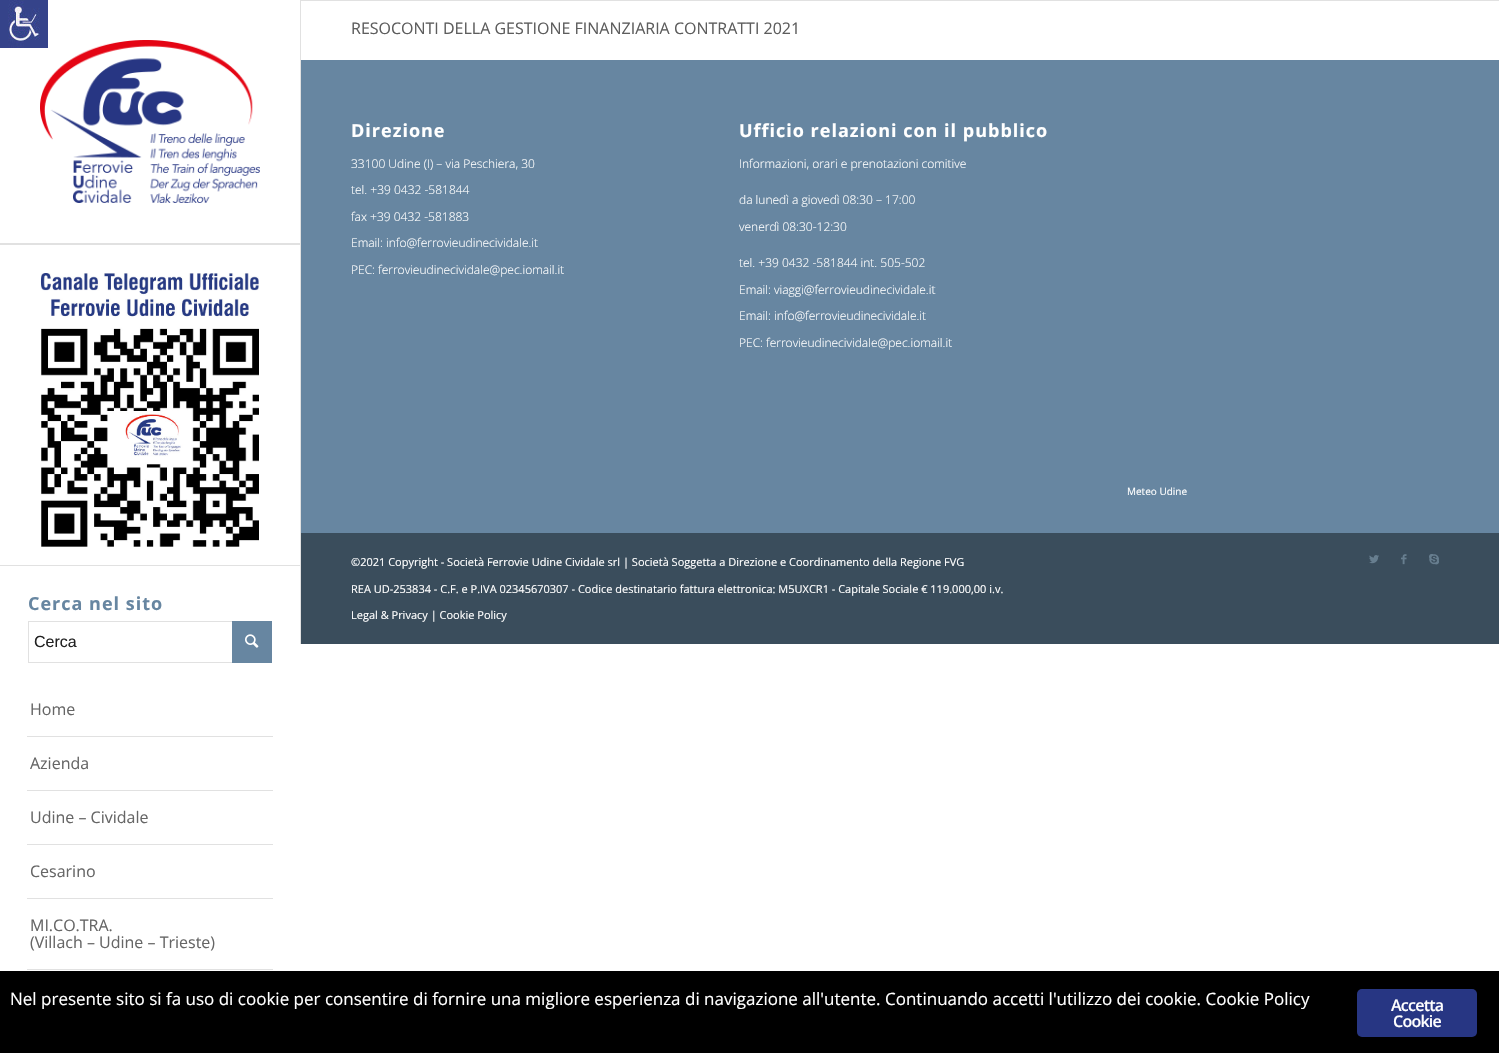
static SkFont makeFont(const char* family, int weight, float size, bool italic = false) {
  SkFontStyle style(weight, SkFontStyle::kNormal_Width,
    italic ? SkFontStyle::kItalic_Slant : SkFontStyle::kUpright_Slant);
  SkFont result(fontMgr->matchFamilyStyle(family, style), size);
  result.setSubpixel(true);
  return result;
}

static void text(SkCanvas* c, const char* s, float x, float y, const SkFont& font, SkColor color) {
  SkPaint ink(SkColor4f::FromColor(color));
  ink.setAntiAlias(true);
  c->drawString(s, x, y, font, ink);
}

static void spacedText(SkCanvas* c, const char* s, float x, float y, const SkFont& font, const SkPaint& ink, float letter, float word) {
  std::vector<SkGlyphID> glyphs(font.countText(s, strlen(s), SkTextEncoding::kUTF8));
  std::vector<float> xs(glyphs.size());
  font.textToGlyphs(s, strlen(s), SkTextEncoding::kUTF8, glyphs);
  font.getXPos(glyphs, xs, x);
  float extra = 0;
  for (size_t i = 0; i < glyphs.size(); i++) {
    xs[i] += extra;
    extra += letter + word * (glyphs[i] == font.unicharToGlyph(' '));
  }
  c->drawTextBlob(SkTextBlob::MakeFromPosHGlyphs(glyphs, xs, y, font), 0, 0, ink);
}

static void box(SkCanvas* c, float l, float t, float r, float b, SkColor color) {
  SkPaint ink(SkColor4f::FromColor(color));
  ink.setAntiAlias(true);
  c->drawRect(SkRect::MakeLTRB(l, t, r, b), ink);
}

static void roundBox(SkCanvas* c, float l, float t, float r, float b, float radius, SkColor color) {
  SkPaint ink(SkColor4f::FromColor(color));
  ink.setAntiAlias(true);
  c->drawRoundRect(SkRect::MakeLTRB(l, t, r, b), radius, radius, ink);
}

static void picture(SkCanvas* c, const char* path, float l, float t, float r, float b) {
  auto image = SkImages::DeferredFromEncodedData(SkData::MakeFromFileName(path));
  c->drawImageRect(image, SkRect::MakeLTRB(l, t, r, b), SkSamplingOptions());
}

void draw(SkCanvas* c) {
  SkPaint paint;
  paint.setAntiAlias(true);
  c->clear(0xffffffff);
  picture(c, "img_05.png", 40, 40, 260, 203);
  picture(c, "img_01.png", 0, 0, 48, 48);
  box(c, 300, 0, 301, 644, 0xffe1e1e1);
  box(c, 301, 0, 1499, 1, 0xffe1e1e1);
  SkFont face1 = makeFont("Open Sans", 400, 16);
  text(c, "RESOCONTI DELLA GESTIONE FINANZIARIA CONTRATTI 2021", 351, 34, face1, 0xff5d5d5d);
  box(c, 301, 60, 1499, 533, 0xff6786a1);
  SkFont face2 = makeFont("Open Sans", 700, 18);
  paint.setColor(0xffffffff);
  spacedText(c, "Direzione", 351, 137, face2, paint, 1, 0);
  SkFont face3 = makeFont("Open Sans", 300, 12);
  text(c, "33100 Udine (I) – via Peschiera, 30", 351, 168, face3, 0xffffffff);
  text(c, "tel. +39 0432 -581844", 351, 194, face3, 0xffffffff);
  text(c, "fax +39 0432 -581883", 351, 221, face3, 0xffffffff);
  text(c, "Email: info@ferrovieudinecividale.it", 351, 247, face3, 0xffffffff);
  text(c, "PEC: ferrovieudinecividale@pec.iomail.it", 351, 274, face3, 0xffffffff);
  spacedText(c, "Ufficio relazioni con il pubblico", 739, 137, face2, paint, 1, 0);
  text(c, "Informazioni, orari e prenotazioni comitive", 739, 168, face3, 0xffffffff);
  text(c, "da lunedì a giovedì 08:30 – 17:00", 739, 204, face3, 0xffffffff);
  text(c, "venerdì 08:30-12:30", 739, 231, face3, 0xffffffff);
  text(c, "tel. +39 0432 -581844 int. 505-502", 739, 267, face3, 0xffffffff);
  text(c, "Email: viaggi@ferrovieudinecividale.it", 739, 294, face3, 0xffffffff);
  text(c, "Email: info@ferrovieudinecividale.it", 739, 320, face3, 0xffffffff);
  text(c, "PEC: ferrovieudinecividale@pec.iomail.it", 739, 347, face3, 0xffffffff);
  SkFont face4 = makeFont("Open Sans", 400, 10);
  text(c, "Meteo Udine", 1127, 495, face4, 0xffffffff);
  box(c, 301, 533, 1499, 644, 0xff3a4d5c);
  SkFont face5 = makeFont("Open Sans", 400, 11);
  text(c, "©2021 Copyright - Società Ferrovie Udine Cividale srl | Società Soggetta a Direzione e Coordinamento della Regione FVG", 351, 566, face5, 0xffffffff);
  text(c, "REA UD-253834 - C.F. e P.IVA 02345670307 - Codice destinatario fattura elettronica: M5UXCR1 - Capitale Sociale € 119.000,00 i.v.", 351, 593, face5, 0xffffffff);
  text(c, "Legal & Privacy | Cookie Policy", 351, 619, face5, 0xffffffff);
  picture(c, "img_02.png", 1369, 555, 1379, 564);
  picture(c, "img_03.png", 1401, 554, 1407, 565);
  picture(c, "img_04.png", 1429, 554, 1439, 565);
  box(c, 0, 243, 300, 245, 0xffe1e1e1);
  picture(c, "img_06.png", 40, 273, 259, 547);
  box(c, 0, 565, 300, 566, 0xffe1e1e1);
  paint.setColor(0xff6786a1);
  spacedText(c, "Cerca nel sito", 28, 610, face2, paint, 1, 0);
  paint.setStyle(SkPaint::kStroke_Style);
  paint.setStrokeWidth(1);
  paint.setColor(0xffe1e1e1);
  c->drawRect(SkRect::MakeLTRB(28.5f, 621.5f, 271.5f, 662.5f), paint);
  SkFont face6 = makeFont("Liberation Sans", 400, 16);
  text(c, "Cerca", 34, 647, face6, 0xff222222);
  box(c, 232, 621, 272, 663, 0xff6786a1);
  picture(c, "img_07.png", 245, 634, 259, 648);
  box(c, 27, 736, 273, 737, 0xffe1e1e1);
  text(c, "Home", 30, 715, face1, 0xff666666);
  box(c, 27, 790, 273, 791, 0xffe1e1e1);
  text(c, "Azienda", 30, 769, face1, 0xff666666);
  box(c, 27, 844, 273, 845, 0xffe1e1e1);
  text(c, "Udine – Cividale", 30, 823, face1, 0xff666666);
  box(c, 27, 898, 273, 899, 0xffe1e1e1);
  text(c, "Cesarino", 30, 877, face1, 0xff666666);
  box(c, 27, 969, 273, 970, 0xffe1e1e1);
  text(c, "MI.CO.TRA.", 30, 931, face1, 0xff666666);
  text(c, "(Villach – Udine – Trieste)", 30, 948, face1, 0xff666666);
  box(c, 0, 971, 1499, 1053, 0xff000000);
  SkFont face7 = makeFont("Open Sans", 400, 17);
  text(c, "Nel presente sito si fa uso di cookie per consentire di fornire una migliore esperienza di navigazione all'utente. Continuando accetti l'utilizzo dei cookie. Cookie Policy", 10, 1005, face7, 0xffffffff);
  roundBox(c, 1357, 989, 1477, 1037, 5, 0xff273683);
  SkFont face8 = makeFont("Open Sans", 600, 16);
  paint.setStyle(SkPaint::kFill_Style);
  paint.setColor(0xffffffff);
  spacedText(c, "Accetta", 1391, 1011, face8, paint, -0.75f, 0);
  spacedText(c, "Cookie", 1393, 1027, face8, paint, -0.75f, 0);
}
